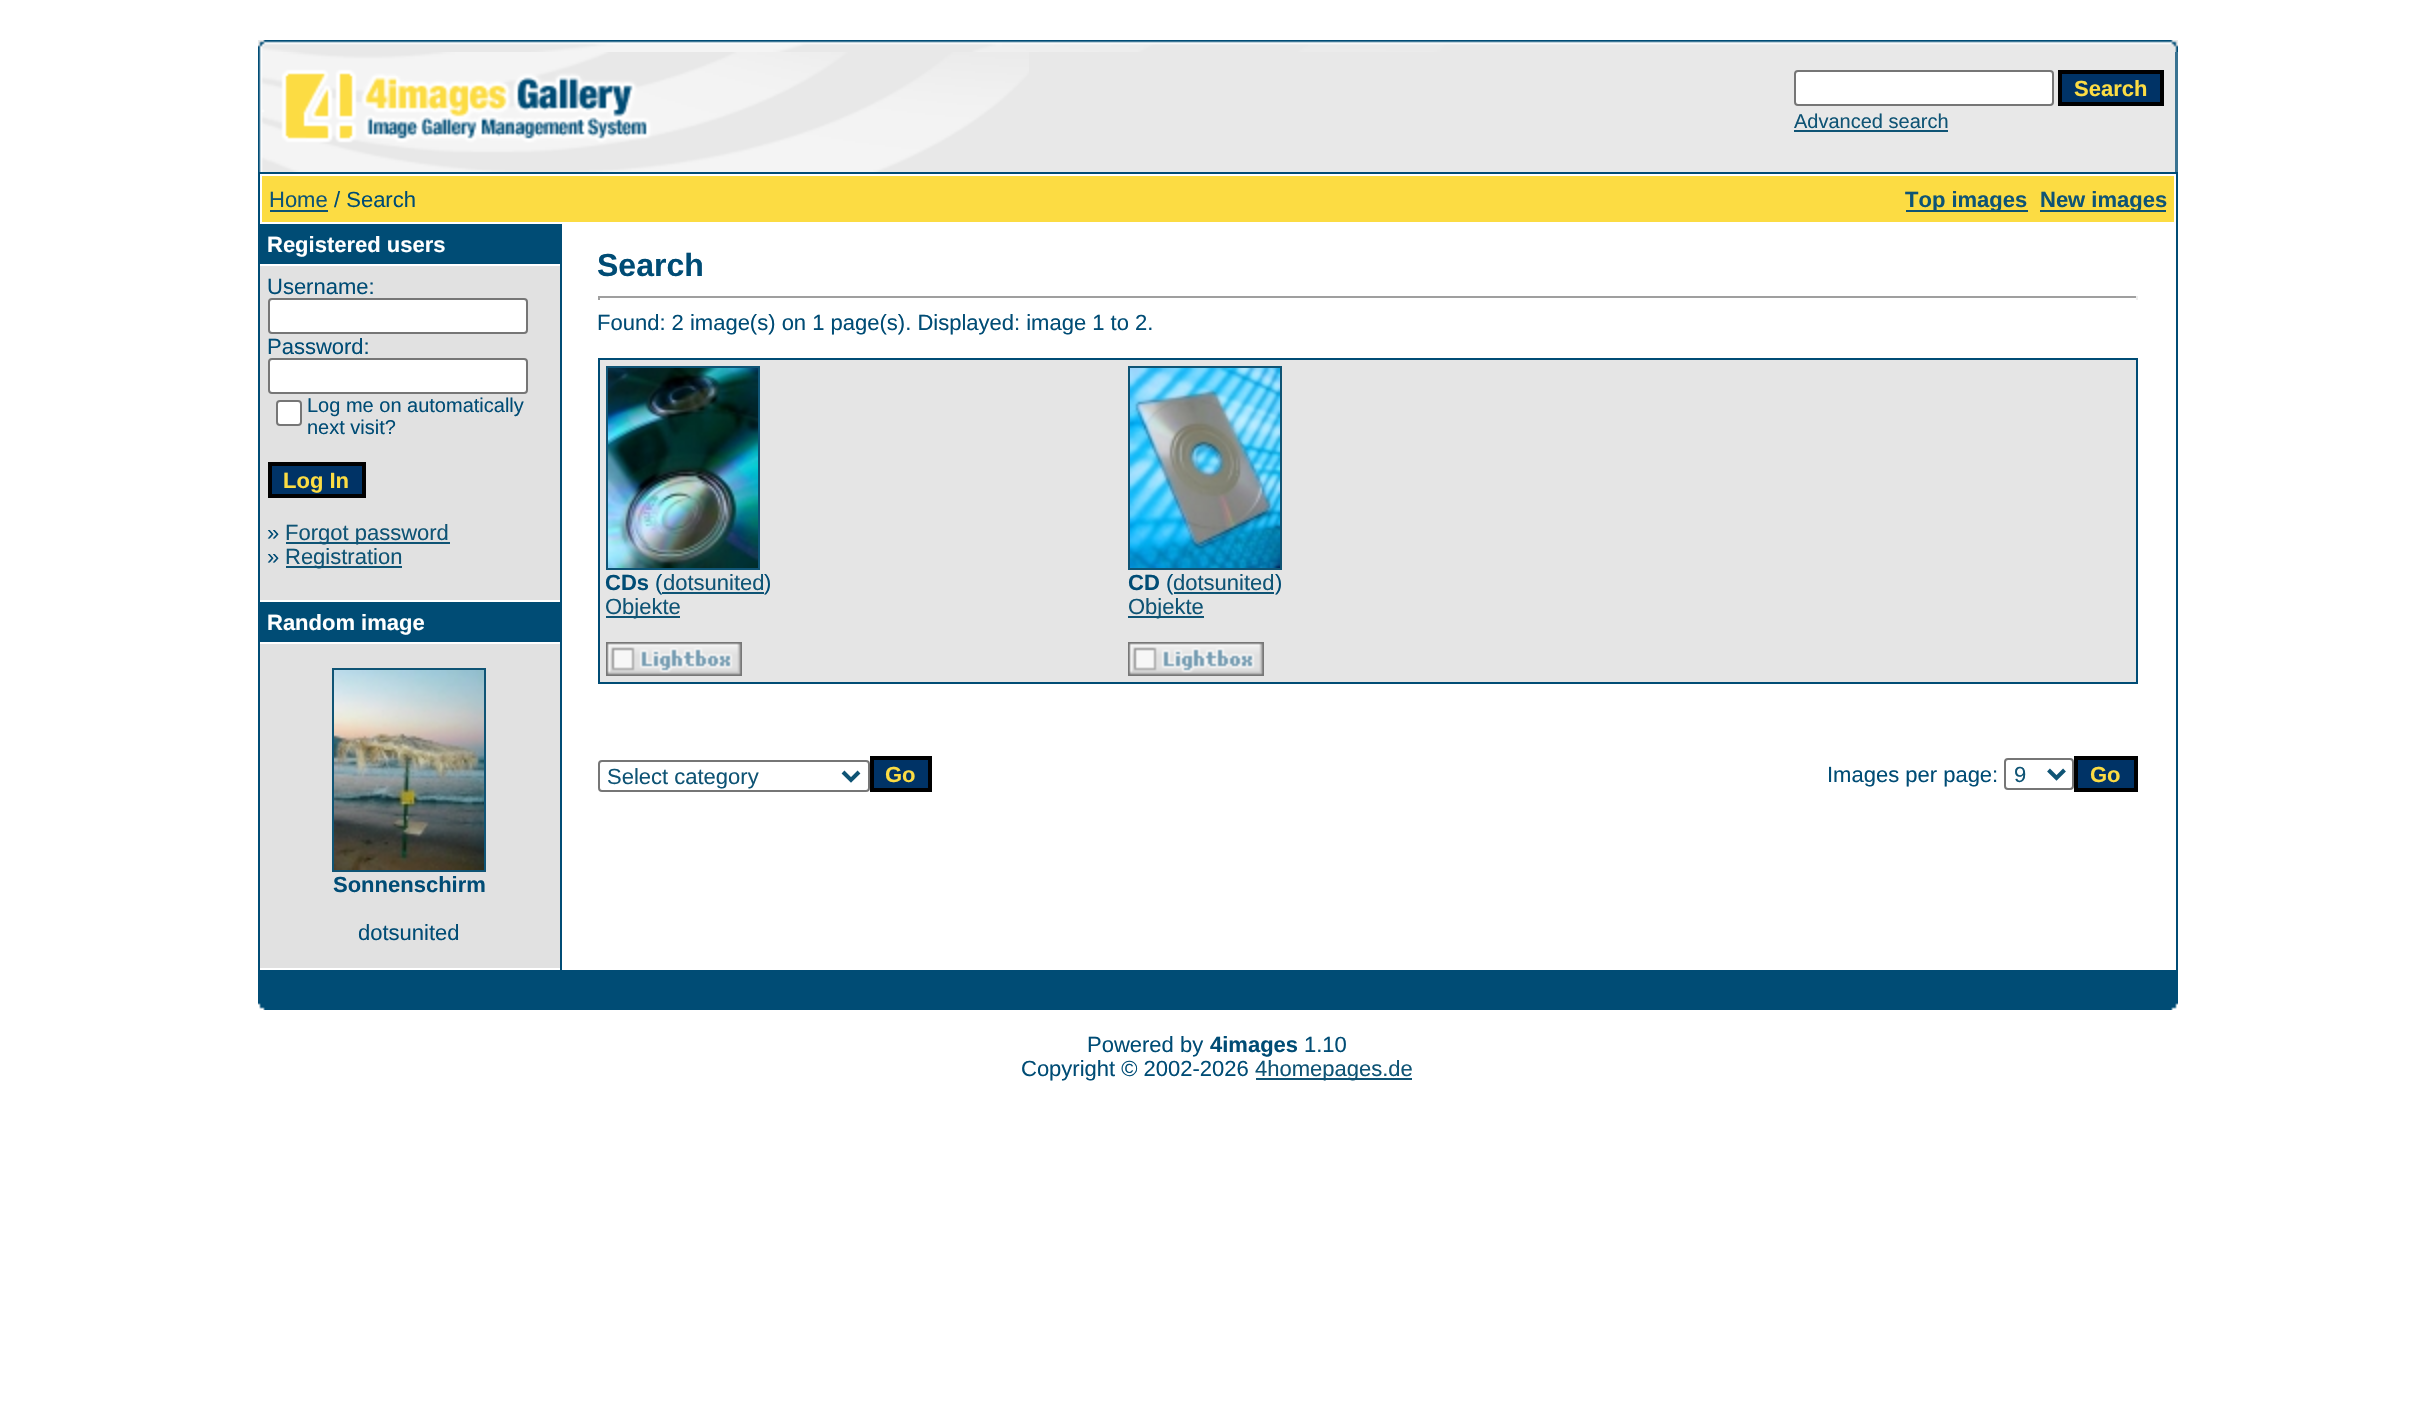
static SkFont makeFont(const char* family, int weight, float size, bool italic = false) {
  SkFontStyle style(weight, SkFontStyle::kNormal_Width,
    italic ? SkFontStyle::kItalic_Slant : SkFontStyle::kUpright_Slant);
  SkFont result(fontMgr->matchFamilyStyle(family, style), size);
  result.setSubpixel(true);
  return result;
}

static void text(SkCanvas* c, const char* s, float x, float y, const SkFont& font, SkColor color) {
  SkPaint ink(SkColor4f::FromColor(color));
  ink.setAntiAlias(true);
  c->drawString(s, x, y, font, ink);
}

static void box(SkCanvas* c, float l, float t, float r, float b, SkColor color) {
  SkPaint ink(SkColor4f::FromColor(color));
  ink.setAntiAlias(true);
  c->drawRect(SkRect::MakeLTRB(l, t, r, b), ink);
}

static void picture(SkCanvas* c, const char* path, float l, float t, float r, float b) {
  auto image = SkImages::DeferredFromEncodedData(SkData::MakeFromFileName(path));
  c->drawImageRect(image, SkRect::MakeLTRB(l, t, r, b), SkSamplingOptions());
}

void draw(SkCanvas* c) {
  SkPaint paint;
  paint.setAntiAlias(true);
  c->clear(0xffffffff);
  box(c, 258, 40, 2178, 172, 0xffe8e8e8);
  picture(c, "img_01.png", 258, 40, 270, 52);
  picture(c, "img_02.png", 270, 40, 2166, 52);
  picture(c, "img_03.png", 2166, 40, 2178, 52);
  picture(c, "img_04.png", 258, 52, 270, 172);
  picture(c, "img_05.png", 270, 52, 1029, 172);
  paint.setColor(0xffffffff);
  c->drawRoundRect(SkRect::MakeLTRB(1795, 71, 2053, 105), 3, 3, paint);
  paint.setStyle(SkPaint::kStroke_Style);
  paint.setStrokeWidth(2);
  paint.setColor(0xff767676);
  c->drawRoundRect(SkRect::MakeLTRB(1795, 71, 2053, 105), 3, 3, paint);
  paint.setStyle(SkPaint::kFill_Style);
  paint.setColor(0xff003366);
  c->drawRect(SkRect::MakeLTRB(2060, 72, 2162, 104), paint);
  paint.setStyle(SkPaint::kStroke_Style);
  paint.setStrokeWidth(4);
  paint.setColor(0xff000000);
  c->drawRect(SkRect::MakeLTRB(2060, 72, 2162, 104), paint);
  SkFont face1 = makeFont("Liberation Sans", 700, 22);
  text(c, "Search", 2074, 96, face1, 0xfffcdc43);
  SkFont face2 = makeFont("Liberation Sans", 400, 20);
  text(c, "Advanced search", 1794, 128, face2, 0xff0f5475);
  box(c, 1794, 130, 1948, 132, 0xff0f5475);
  box(c, 2175, 52, 2178, 172, 0xff3a7391);
  box(c, 258, 172, 2178, 1010, 0xff004c75);
  box(c, 260, 174, 2176, 970, 0xffffffff);
  box(c, 262, 176, 2174, 222, 0xfffcdc43);
  SkFont face3 = makeFont("Liberation Sans", 400, 22);
  text(c, "Home", 269, 207, face3, 0xff0f5475);
  box(c, 270, 210, 328, 212, 0xff0f5475);
  text(c, "/ Search", 334, 207, face3, 0xff004c75);
  box(c, 1906, 210, 2028, 212, 0xff0f5475);
  text(c, "Top images", 1905, 207, face1, 0xff0f5475);
  box(c, 2040, 210, 2166, 212, 0xff0f5475);
  text(c, "New images", 2040, 207, face1, 0xff0f5475);
  box(c, 260, 224, 560, 264, 0xff004c75);
  text(c, "Registered users", 267, 252, face1, 0xffffffff);
  box(c, 260, 266, 560, 600, 0xffe1e1e1);
  text(c, "Username:", 267, 294, face3, 0xff004c75);
  paint.setStyle(SkPaint::kFill_Style);
  paint.setColor(0xffffffff);
  c->drawRoundRect(SkRect::MakeLTRB(269, 299, 527, 333), 3, 3, paint);
  paint.setStyle(SkPaint::kStroke_Style);
  paint.setStrokeWidth(2);
  paint.setColor(0xff767676);
  c->drawRoundRect(SkRect::MakeLTRB(269, 299, 527, 333), 3, 3, paint);
  text(c, "Password:", 267, 354, face3, 0xff004c75);
  paint.setStyle(SkPaint::kFill_Style);
  paint.setColor(0xffffffff);
  c->drawRoundRect(SkRect::MakeLTRB(269, 359, 527, 393), 3, 3, paint);
  paint.setStyle(SkPaint::kStroke_Style);
  paint.setColor(0xff767676);
  c->drawRoundRect(SkRect::MakeLTRB(269, 359, 527, 393), 3, 3, paint);
  paint.setStyle(SkPaint::kFill_Style);
  paint.setColor(0xffffffff);
  c->drawRoundRect(SkRect::MakeLTRB(277, 401, 301, 425), 3, 3, paint);
  paint.setStyle(SkPaint::kStroke_Style);
  paint.setColor(0xff767676);
  c->drawRoundRect(SkRect::MakeLTRB(277, 401, 301, 425), 3, 3, paint);
  text(c, "Log me on automatically", 307, 412, face2, 0xff004c75);
  text(c, "next visit?", 307, 434, face2, 0xff004c75);
  paint.setStyle(SkPaint::kFill_Style);
  paint.setColor(0xff003366);
  c->drawRect(SkRect::MakeLTRB(270, 464, 364, 496), paint);
  paint.setStyle(SkPaint::kStroke_Style);
  paint.setStrokeWidth(4);
  paint.setColor(0xff000000);
  c->drawRect(SkRect::MakeLTRB(270, 464, 364, 496), paint);
  text(c, "Log In", 283, 488, face1, 0xfffcdc43);
  text(c, "»", 267, 540, face3, 0xff004c75);
  box(c, 286, 542, 450, 544, 0xff0f5475);
  text(c, "Forgot password", 285, 540, face3, 0xff0f5475);
  text(c, "»", 267, 564, face3, 0xff004c75);
  box(c, 286, 566, 402, 568, 0xff0f5475);
  text(c, "Registration", 285, 564, face3, 0xff0f5475);
  box(c, 260, 602, 560, 642, 0xff004c75);
  text(c, "Random image", 267, 630, face1, 0xffffffff);
  box(c, 260, 644, 560, 968, 0xffe1e1e1);
  paint.setStrokeWidth(2);
  paint.setColor(0xff0f5475);
  c->drawRect(SkRect::MakeLTRB(333, 669, 485, 871), paint);
  picture(c, "img_06.png", 334, 670, 484, 870);
  text(c, "Sonnenschirm", 333, 892, face1, 0xff004c75);
  text(c, "dotsunited", 358, 940, face3, 0xff004c75);
  box(c, 560, 224, 562, 970, 0xff004c75);
  SkFont face4 = makeFont("Liberation Sans", 700, 32);
  text(c, "Search", 597, 276, face4, 0xff004c75);
  box(c, 598, 296, 2138, 298, 0xff9f9f9f);
  box(c, 2136, 296, 2138, 300, 0xffeeeeee);
  box(c, 598, 296, 600, 300, 0xff9f9f9f);
  text(c, "Found: 2 image(s) on 1 page(s). Displayed: image 1 to 2.", 597, 330, face3, 0xff004c75);
  box(c, 598, 358, 2138, 684, 0xff004c75);
  box(c, 600, 360, 2136, 682, 0xffe5e5e5);
  c->drawRect(SkRect::MakeLTRB(607, 367, 759, 569), paint);
  picture(c, "img_07.png", 608, 368, 758, 568);
  text(c, "CDs", 605, 590, face1, 0xff004c75);
  text(c, "(", 655, 590, face3, 0xff004c75);
  text(c, "dotsunited", 663, 590, face3, 0xff0f5475);
  box(c, 662, 592, 764, 594, 0xff0f5475);
  text(c, ")", 764, 590, face3, 0xff004c75);
  box(c, 606, 616, 680, 618, 0xff0f5475);
  text(c, "Objekte", 605, 614, face3, 0xff0f5475);
  picture(c, "img_08.png", 606, 642, 742, 676);
  c->drawRect(SkRect::MakeLTRB(1129, 367, 1281, 569), paint);
  picture(c, "img_09.png", 1130, 368, 1280, 568);
  text(c, "CD", 1128, 590, face1, 0xff004c75);
  text(c, "(", 1166, 590, face3, 0xff004c75);
  text(c, "dotsunited", 1173, 590, face3, 0xff0f5475);
  box(c, 1174, 592, 1274, 594, 0xff0f5475);
  text(c, ")", 1275, 590, face3, 0xff004c75);
  box(c, 1128, 616, 1204, 618, 0xff0f5475);
  text(c, "Objekte", 1128, 614, face3, 0xff0f5475);
  picture(c, "img_08.png", 1128, 642, 1264, 676);
  paint.setColor(0xff767676);
  c->drawRoundRect(SkRect::MakeLTRB(599, 761, 869, 791), 3, 3, paint);
  paint.setStrokeWidth(4);
  paint.setColor(0xff0f5475);
  c->drawPath(SkPathBuilder().moveTo(843, 772).lineTo(851, 780).lineTo(859, 772).detach(), paint);
  text(c, "Select category", 607, 784, face3, 0xff0f5475);
  paint.setStyle(SkPaint::kFill_Style);
  paint.setColor(0xff003366);
  c->drawRect(SkRect::MakeLTRB(872, 758, 930, 790), paint);
  paint.setStyle(SkPaint::kStroke_Style);
  paint.setColor(0xff000000);
  c->drawRect(SkRect::MakeLTRB(872, 758, 930, 790), paint);
  text(c, "Go", 885, 782, face1, 0xfffcdc43);
  text(c, "Images per page:", 1827, 782, face3, 0xff004c75);
  paint.setStrokeWidth(2);
  paint.setColor(0xff767676);
  c->drawRoundRect(SkRect::MakeLTRB(2005, 759, 2073, 789), 3, 3, paint);
  paint.setStrokeWidth(4);
  paint.setColor(0xff0f5475);
  c->drawPath(SkPathBuilder().moveTo(2048.5f, 770).lineTo(2056.5f, 778).lineTo(2064.5f, 770).detach(), paint);
  text(c, "9", 2014, 782, face3, 0xff0f5475);
  paint.setStyle(SkPaint::kFill_Style);
  paint.setColor(0xff003366);
  c->drawRect(SkRect::MakeLTRB(2076, 758, 2136, 790), paint);
  paint.setStyle(SkPaint::kStroke_Style);
  paint.setColor(0xff000000);
  c->drawRect(SkRect::MakeLTRB(2076, 758, 2136, 790), paint);
  text(c, "Go", 2090, 782, face1, 0xfffcdc43);
  picture(c, "img_10.png", 258, 1003, 265, 1010);
  picture(c, "img_11.png", 2171, 1003, 2178, 1010);
  text(c, "Powered by", 1087, 1052, face3, 0xff004c75);
  text(c, "4images", 1210, 1052, face1, 0xff004c75);
  text(c, "1.10", 1304, 1052, face3, 0xff004c75);
  text(c, "Copyright © 2002-2026", 1021, 1076, face3, 0xff004c75);
  box(c, 1256, 1078, 1412, 1080, 0xff0f5475);
  text(c, "4homepages.de", 1255, 1076, face3, 0xff0f5475);
}
